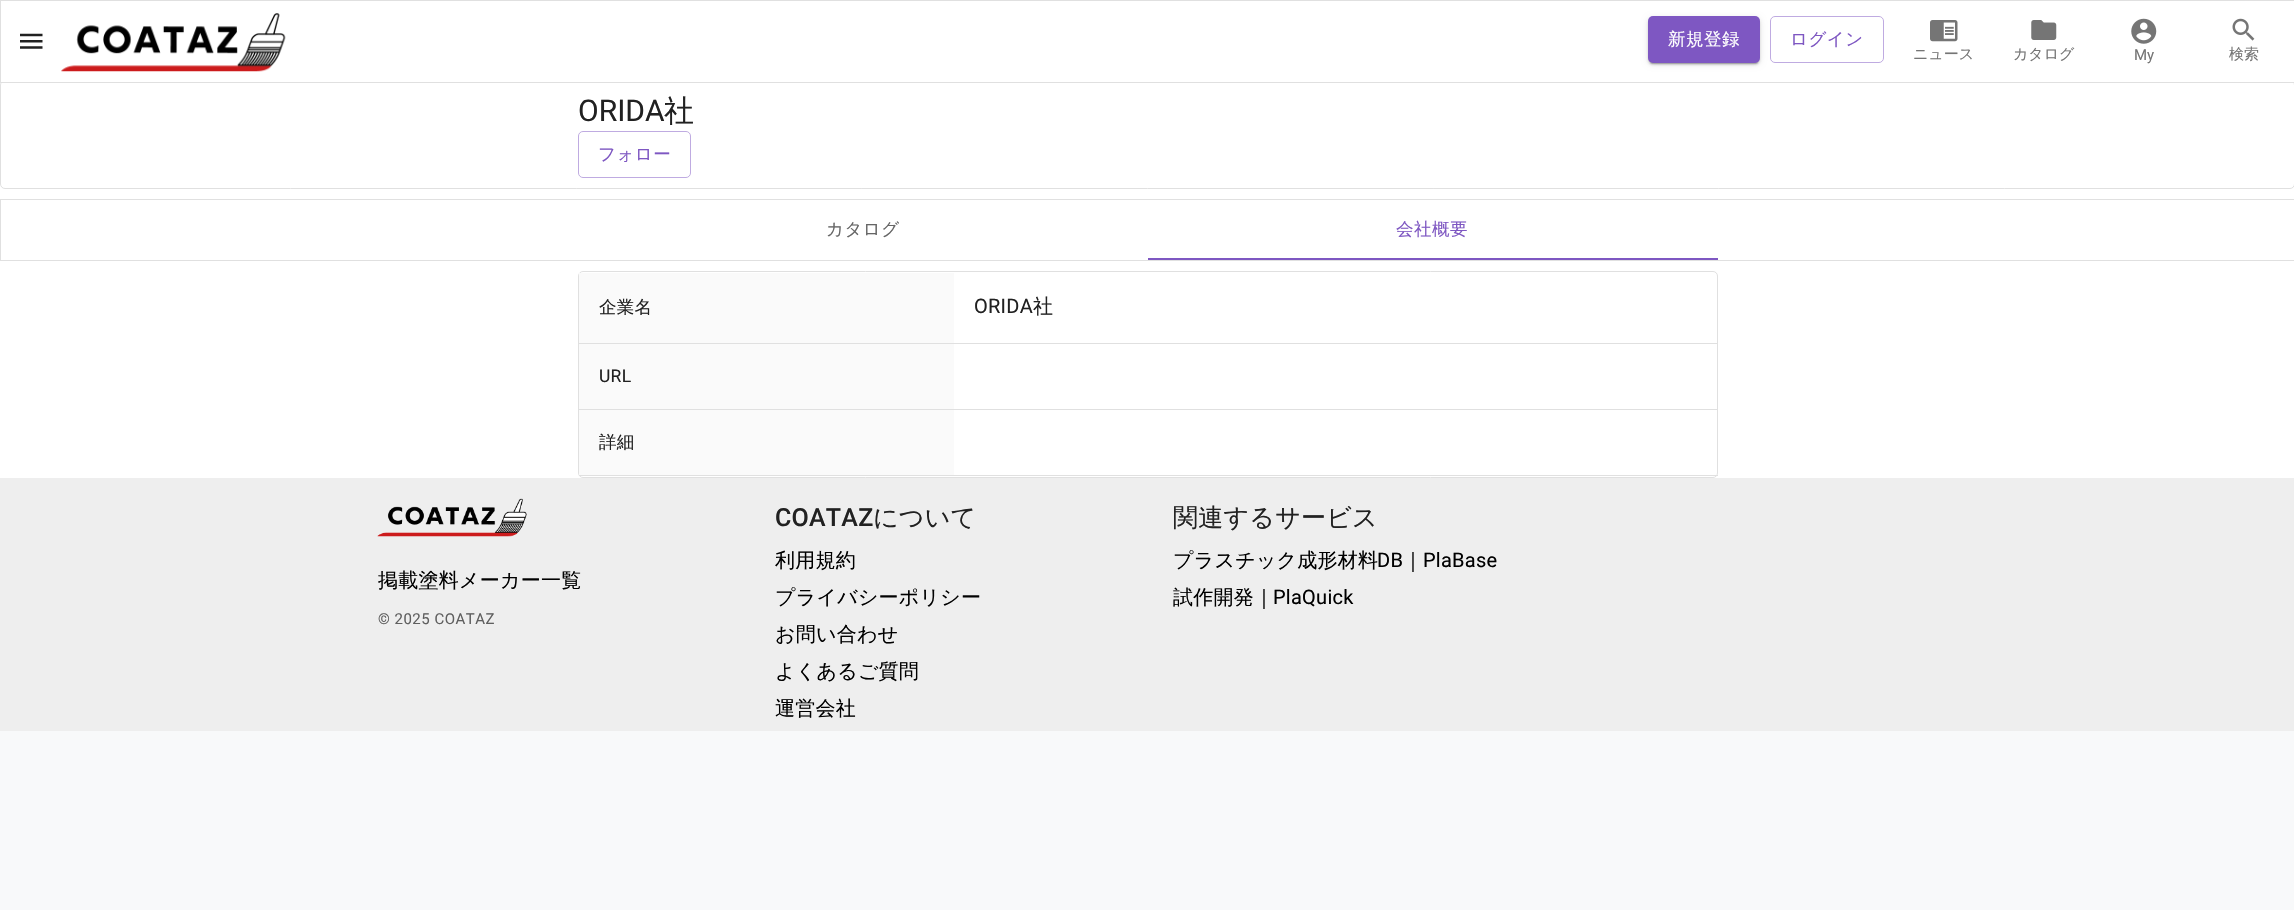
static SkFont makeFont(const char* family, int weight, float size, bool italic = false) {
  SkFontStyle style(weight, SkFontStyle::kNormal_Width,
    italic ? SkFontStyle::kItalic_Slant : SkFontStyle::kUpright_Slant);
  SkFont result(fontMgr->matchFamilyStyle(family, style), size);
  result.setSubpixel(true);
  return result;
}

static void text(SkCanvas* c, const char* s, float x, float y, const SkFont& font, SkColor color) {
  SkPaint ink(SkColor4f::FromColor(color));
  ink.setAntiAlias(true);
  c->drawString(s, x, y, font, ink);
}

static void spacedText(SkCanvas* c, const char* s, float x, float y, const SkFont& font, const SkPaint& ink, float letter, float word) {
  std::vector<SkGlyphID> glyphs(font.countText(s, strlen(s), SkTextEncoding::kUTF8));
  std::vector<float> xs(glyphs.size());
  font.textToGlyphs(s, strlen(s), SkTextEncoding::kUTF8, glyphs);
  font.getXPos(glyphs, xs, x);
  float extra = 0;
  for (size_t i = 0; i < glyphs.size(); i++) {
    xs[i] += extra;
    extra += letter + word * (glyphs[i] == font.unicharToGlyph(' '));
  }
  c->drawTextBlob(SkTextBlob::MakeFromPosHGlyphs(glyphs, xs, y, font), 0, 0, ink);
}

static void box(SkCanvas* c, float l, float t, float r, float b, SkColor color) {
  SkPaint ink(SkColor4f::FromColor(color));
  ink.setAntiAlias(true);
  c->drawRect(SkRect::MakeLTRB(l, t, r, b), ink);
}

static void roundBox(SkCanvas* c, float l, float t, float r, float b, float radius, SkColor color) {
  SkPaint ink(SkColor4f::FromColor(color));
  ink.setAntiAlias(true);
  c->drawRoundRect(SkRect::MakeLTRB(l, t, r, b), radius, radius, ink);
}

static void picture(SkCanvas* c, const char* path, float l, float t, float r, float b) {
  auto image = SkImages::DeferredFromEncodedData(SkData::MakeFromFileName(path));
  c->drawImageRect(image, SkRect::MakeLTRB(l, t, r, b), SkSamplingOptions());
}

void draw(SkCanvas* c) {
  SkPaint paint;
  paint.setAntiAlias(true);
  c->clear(0xfff8f9fa);
  box(c, 0, 83, 2294, 478, 0xffffffff);
  paint.setStyle(SkPaint::kStroke_Style);
  paint.setStrokeWidth(1);
  paint.setColor(0xffe0e0e0);
  c->drawRoundRect(SkRect::MakeLTRB(0.5f, 80.5f, 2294.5f, 188.5f), 4.5f, 4.5f, paint);
  paint.setStyle(SkPaint::kFill_Style);
  paint.setColor(0xffffffff);
  c->drawRect(SkRect::MakeLTRB(0.5f, 0.5f, 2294.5f, 82.5f), paint);
  paint.setStyle(SkPaint::kStroke_Style);
  paint.setColor(0xffe0e0e0);
  c->drawRect(SkRect::MakeLTRB(0.5f, 0.5f, 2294.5f, 82.5f), paint);
  picture(c, "img_01.png", 20, 33, 43, 49);
  picture(c, "img_02.png", 61, 13, 286, 72);
  paint.setStyle(SkPaint::kFill_Style);
  paint.setColor(0x1f000000);
  paint.setMaskFilter(SkMaskFilter::MakeBlur(kNormal_SkBlurStyle, 3));
  c->drawRoundRect(SkRect::MakeLTRB(1648, 18, 1760, 64), 5, 5, paint);
  paint.setMaskFilter(nullptr);
  paint.setColor(0x24000000);
  paint.setMaskFilter(SkMaskFilter::MakeBlur(kNormal_SkBlurStyle, 1));
  c->drawRoundRect(SkRect::MakeLTRB(1648, 19, 1760, 65), 5, 5, paint);
  paint.setMaskFilter(nullptr);
  paint.setColor(0x33000000);
  paint.setMaskFilter(SkMaskFilter::MakeBlur(kNormal_SkBlurStyle, 0.5f));
  c->drawRoundRect(SkRect::MakeLTRB(1650, 23, 1758, 64), 2.5f, 2.5f, paint);
  paint.setMaskFilter(nullptr);
  roundBox(c, 1648, 16, 1760, 63, 5, 0xff7e57c2);
  SkFont face1 = makeFont("WenQuanYi Zen Hei", 500, 17.5f);
  paint.setColor(0xffffffff);
  spacedText(c, "新規登録", 1668, 45, face1, paint, 0.5f, 0);
  paint.setStyle(SkPaint::kStroke_Style);
  paint.setColor(0xffbfabe1);
  c->drawRoundRect(SkRect::MakeLTRB(1770.5f, 16.5f, 1883.5f, 62.5f), 4.5f, 4.5f, paint);
  paint.setStyle(SkPaint::kFill_Style);
  paint.setColor(0xff7e57c2);
  spacedText(c, "ログイン", 1790, 45, face1, paint, 0.5f, 0);
  picture(c, "img_03.png", 1930, 20, 1958, 42);
  SkFont face2 = makeFont("WenQuanYi Zen Hei", 500, 15);
  text(c, "ニュース", 1913, 59, face2, 0xff757575);
  picture(c, "img_04.png", 2031, 20, 2057, 40);
  text(c, "カタログ", 2013, 59, face2, 0xff757575);
  picture(c, "img_05.png", 2131, 18, 2157, 44);
  SkFont face3 = makeFont("Roboto", 400, 15);
  text(c, "My", 2134, 60, face3, 0xff757575);
  picture(c, "img_06.png", 2232, 18, 2255, 41);
  text(c, "検索", 2229, 59, face2, 0xff757575);
  SkFont face4 = makeFont("Roboto", 400, 30);
  text(c, "ORIDA", 578, 121, face4, 0xff212121);
  SkFont face5 = makeFont("WenQuanYi Zen Hei", 500, 30);
  text(c, "社", 664, 121, face5, 0xff212121);
  paint.setStyle(SkPaint::kStroke_Style);
  paint.setColor(0xffbfabe1);
  c->drawRoundRect(SkRect::MakeLTRB(578.5f, 131.5f, 690.5f, 177.5f), 4.5f, 4.5f, paint);
  paint.setStyle(SkPaint::kFill_Style);
  paint.setColor(0xff7e57c2);
  spacedText(c, "フォロー", 598, 160, face1, paint, 0.5f, 0);
  paint.setStyle(SkPaint::kStroke_Style);
  paint.setColor(0xffe0e0e0);
  c->drawRect(SkRect::MakeLTRB(0.5f, 199.5f, 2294.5f, 260.5f), paint);
  paint.setStyle(SkPaint::kFill_Style);
  paint.setColor(0xff666666);
  spacedText(c, "カタログ", 826, 235, face1, paint, 0.5f, 0);
  paint.setColor(0xff7e57c2);
  spacedText(c, "会社概要", 1396, 235, face1, paint, 0.5f, 0);
  box(c, 1148, 258, 1718, 260, 0xff7e57c2);
  paint.setStyle(SkPaint::kStroke_Style);
  paint.setColor(0xffe0e0e0);
  c->drawRoundRect(SkRect::MakeLTRB(578.5f, 271.5f, 1717.5f, 477.5f), 4.5f, 4.5f, paint);
  box(c, 579, 273, 954, 343, 0xfffafafa);
  paint.setStyle(SkPaint::kFill_Style);
  paint.setColor(0xff212121);
  spacedText(c, "企業名", 599, 313, face1, paint, 0.25f, 0);
  box(c, 579, 343, 1718, 344, 0xffe0e0e0);
  SkFont face6 = makeFont("Roboto", 400, 20);
  spacedText(c, "ORIDA", 974, 313, face6, paint, 0.25f, 0);
  SkFont face7 = makeFont("WenQuanYi Zen Hei", 500, 20);
  spacedText(c, "社", 1033, 313, face7, paint, 0.25f, 0);
  box(c, 579, 344, 954, 409, 0xfffafafa);
  SkFont face8 = makeFont("Roboto", 400, 17.5f);
  spacedText(c, "URL", 599, 382, face8, paint, 0.25f, 0);
  box(c, 579, 409, 1718, 410, 0xffe0e0e0);
  box(c, 579, 410, 954, 475, 0xfffafafa);
  spacedText(c, "詳細", 599, 448, face1, paint, 0.25f, 0);
  box(c, 579, 475, 1718, 476, 0xffe0e0e0);
  box(c, 0, 478, 2294, 731, 0xffeeeeee);
  picture(c, "img_07.png", 377, 498, 527, 537);
  paint.setColor(0xff000000);
  spacedText(c, "掲載塗料メーカー一覧", 378, 587, face7, paint, 0.25f, 0);
  paint.setColor(0xff5f5f5f);
  spacedText(c, "© 2025 COATAZ", 378, 624, face3, paint, 0.5f, 0);
  SkFont face9 = makeFont("Roboto", 500, 25);
  paint.setColor(0xff212121);
  spacedText(c, "COATAZ", 775, 526, face9, paint, 0.25f, 0);
  SkFont face10 = makeFont("WenQuanYi Zen Hei", 500, 25);
  spacedText(c, "について", 873, 526, face10, paint, 0.25f, 0);
  paint.setColor(0xff000000);
  spacedText(c, "利用規約", 775, 567, face7, paint, 0.25f, 0);
  spacedText(c, "プライバシーポリシー", 775, 604, face7, paint, 0.25f, 0);
  spacedText(c, "お問い合わせ", 775, 641, face7, paint, 0.25f, 0);
  spacedText(c, "よくあるご質問", 775, 678, face7, paint, 0.25f, 0);
  spacedText(c, "運営会社", 775, 715, face7, paint, 0.25f, 0);
  paint.setColor(0xff212121);
  spacedText(c, "関連するサービス", 1173, 526, face10, paint, 0.25f, 0);
  paint.setColor(0xff000000);
  spacedText(c, "プラスチック成形材料", 1173, 567, face7, paint, 0.25f, 0);
  spacedText(c, "DB", 1377, 567, face6, paint, 0.25f, 0);
  spacedText(c, "｜", 1403, 567, face7, paint, 0.25f, 0);
  spacedText(c, "PlaBase", 1423, 567, face6, paint, 0.25f, 0);
  spacedText(c, "試作開発｜", 1173, 604, face7, paint, 0.25f, 0);
  spacedText(c, "PlaQuick", 1273, 604, face6, paint, 0.25f, 0);
}
